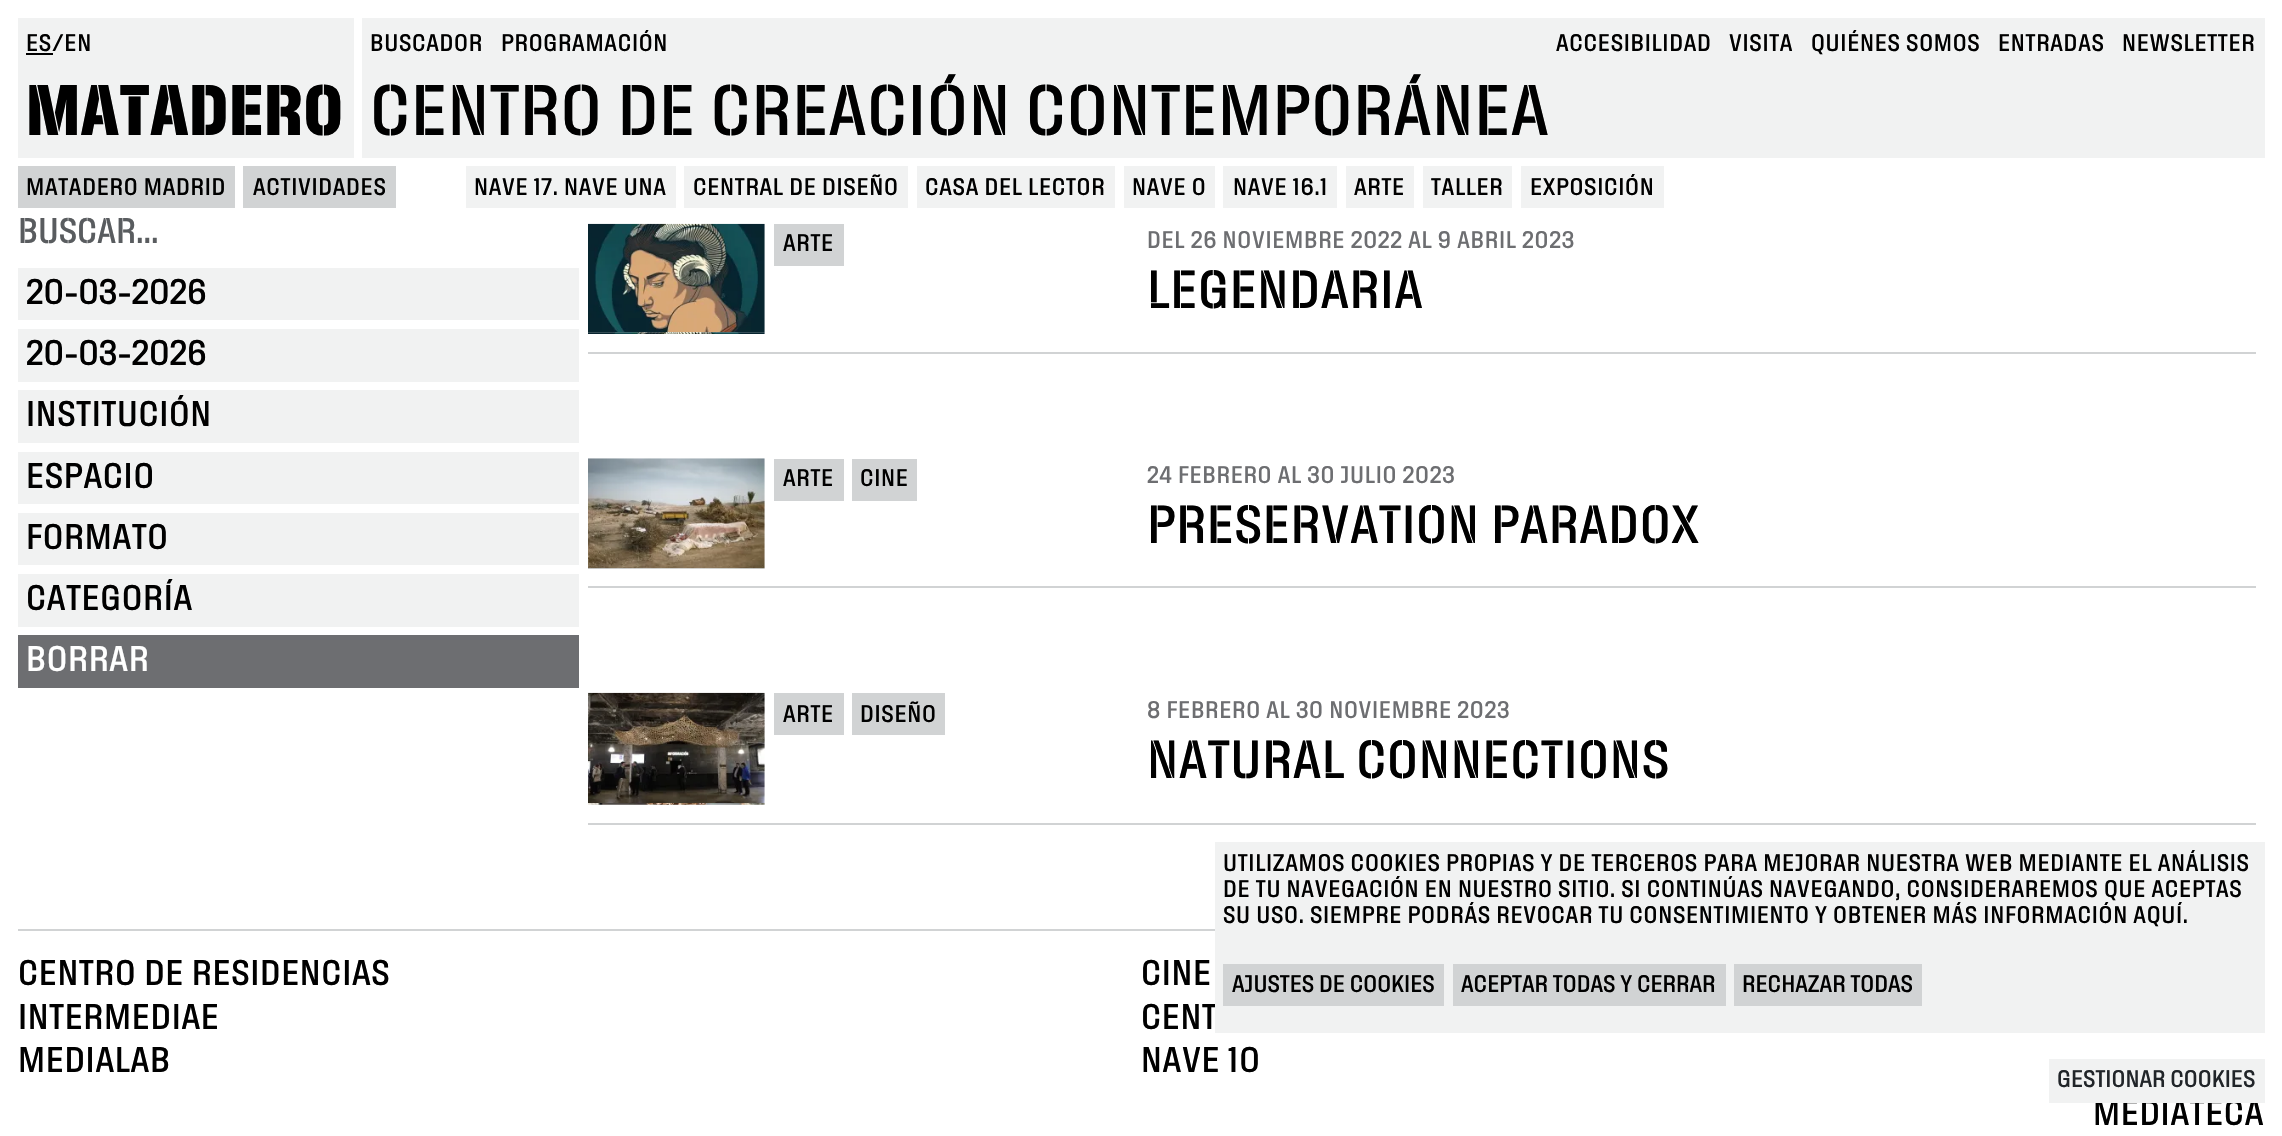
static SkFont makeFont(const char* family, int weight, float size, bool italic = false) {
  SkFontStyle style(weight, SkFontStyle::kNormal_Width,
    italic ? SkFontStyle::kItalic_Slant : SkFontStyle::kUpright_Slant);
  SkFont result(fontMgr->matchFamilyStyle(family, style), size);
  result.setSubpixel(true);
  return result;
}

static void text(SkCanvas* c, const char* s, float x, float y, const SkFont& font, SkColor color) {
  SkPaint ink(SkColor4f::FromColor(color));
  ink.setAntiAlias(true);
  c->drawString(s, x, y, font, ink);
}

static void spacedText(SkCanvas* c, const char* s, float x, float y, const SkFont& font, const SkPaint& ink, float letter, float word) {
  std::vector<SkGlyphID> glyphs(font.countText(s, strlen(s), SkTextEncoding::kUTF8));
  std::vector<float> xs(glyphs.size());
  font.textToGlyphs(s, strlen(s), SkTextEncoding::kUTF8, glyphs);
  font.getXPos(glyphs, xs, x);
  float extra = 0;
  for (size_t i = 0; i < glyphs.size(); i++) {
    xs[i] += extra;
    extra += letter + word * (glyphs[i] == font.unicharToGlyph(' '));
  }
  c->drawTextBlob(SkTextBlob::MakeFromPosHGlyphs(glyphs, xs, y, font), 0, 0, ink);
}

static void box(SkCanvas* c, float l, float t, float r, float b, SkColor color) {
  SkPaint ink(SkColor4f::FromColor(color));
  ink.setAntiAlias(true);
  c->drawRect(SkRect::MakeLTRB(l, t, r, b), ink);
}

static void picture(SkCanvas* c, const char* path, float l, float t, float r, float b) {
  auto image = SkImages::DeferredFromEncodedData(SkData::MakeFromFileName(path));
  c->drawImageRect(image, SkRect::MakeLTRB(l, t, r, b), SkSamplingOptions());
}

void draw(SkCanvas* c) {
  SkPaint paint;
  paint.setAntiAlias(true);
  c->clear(0xffffffff);
  box(c, 18, 18, 354, 158, 0xfff1f2f2);
  SkFont face1 = makeFont("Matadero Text", 500, 23.6f);
  paint.setColor(0xff000000);
  spacedText(c, "ES/EN", 26, 51, face1, paint, 0.7f, 0);
  box(c, 26, 53, 53, 55, 0xff000000);
  SkFont face2 = makeFont("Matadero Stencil", 700, 70);
  spacedText(c, "MATADERO", 26, 135, face2, paint, 0.7f, 0);
  box(c, 362, 18, 2265, 158, 0xfff1f2f2);
  spacedText(c, "BUSCADOR", 370, 51, face1, paint, 0.7f, 0);
  spacedText(c, "PROGRAMACIÓN", 501, 51, face1, paint, 0.7f, 0);
  spacedText(c, "ACCESIBILIDAD", 1556, 51, face1, paint, 0.7f, 0);
  spacedText(c, "VISITA", 1729, 51, face1, paint, 0.7f, 0);
  spacedText(c, "QUIÉNES SOMOS", 1811, 51, face1, paint, 0.7f, 0);
  spacedText(c, "ENTRADAS", 1998, 51, face1, paint, 0.7f, 0);
  spacedText(c, "NEWSLETTER", 2122, 51, face1, paint, 0.7f, 0);
  SkFont face3 = makeFont("Matadero Stencil", 500, 70);
  spacedText(c, "CENTRO DE CREACIÓN CONTEMPORÁNEA", 370, 135, face3, paint, 0.7f, 0);
  box(c, 18, 166, 235, 208, 0xffd1d3d4);
  spacedText(c, "MATADERO MADRID", 26, 195, face1, paint, 0.7f, 0);
  box(c, 243, 166, 396, 208, 0xffd1d3d4);
  spacedText(c, "ACTIVIDADES", 253, 195, face1, paint, 0.7f, 0);
  box(c, 466, 166, 676, 208, 0xfff1f2f2);
  spacedText(c, "NAVE 17. NAVE UNA", 474, 195, face1, paint, 0.7f, 0);
  box(c, 684, 166, 908, 208, 0xfff1f2f2);
  spacedText(c, "CENTRAL DE DISEÑO", 693, 195, face1, paint, 0.7f, 0);
  box(c, 917, 166, 1115, 208, 0xfff1f2f2);
  spacedText(c, "CASA DEL LECTOR", 925, 195, face1, paint, 0.7f, 0);
  box(c, 1124, 166, 1215, 208, 0xfff1f2f2);
  spacedText(c, "NAVE 0", 1132, 195, face1, paint, 0.7f, 0);
  box(c, 1223, 166, 1337, 208, 0xfff1f2f2);
  spacedText(c, "NAVE 16.1", 1233, 195, face1, paint, 0.7f, 0);
  box(c, 1346, 166, 1414, 208, 0xfff1f2f2);
  spacedText(c, "ARTE", 1354, 195, face1, paint, 0.7f, 0);
  box(c, 1423, 166, 1512, 208, 0xfff1f2f2);
  spacedText(c, "TALLER", 1431, 195, face1, paint, 0.7f, 0);
  box(c, 1521, 166, 1664, 208, 0xfff1f2f2);
  spacedText(c, "EXPOSICIÓN", 1530, 195, face1, paint, 0.7f, 0);
  SkFont face4 = makeFont("Matadero Stencil", 500, 35);
  text(c, "BUSCAR...", 18, 243, face4, 0xff595c5f);
  box(c, 18, 268, 579, 320, 0xfff1f2f2);
  SkFont face5 = makeFont("Matadero Text", 500, 35);
  text(c, "20-03-2026", 26, 304, face5, 0xff000000);
  box(c, 18, 329, 579, 382, 0xfff1f2f2);
  text(c, "20-03-2026", 26, 365, face5, 0xff000000);
  box(c, 18, 390, 579, 443, 0xfff1f2f2);
  spacedText(c, "INSTITUCIÓN", 26, 426, face5, paint, 0.7f, 0);
  box(c, 18, 452, 579, 504, 0xfff1f2f2);
  spacedText(c, "ESPACIO", 26, 488, face5, paint, 0.7f, 0);
  box(c, 18, 513, 579, 565, 0xfff1f2f2);
  spacedText(c, "FORMATO", 26, 549, face5, paint, 0.7f, 0);
  box(c, 18, 574, 579, 627, 0xfff1f2f2);
  spacedText(c, "CATEGORÍA", 26, 610, face5, paint, 0.7f, 0);
  box(c, 18, 635, 579, 688, 0xff6d6e71);
  paint.setColor(0xffffffff);
  spacedText(c, "BORRAR", 26, 671, face5, paint, 0.7f, 0);
  box(c, 588, 352, 2256, 354, 0xffd1d3d4);
  picture(c, "img_01.png", 588, 223, 765, 333);
  picture(c, "img_02.png", 588, 332, 765, 334);
  box(c, 774, 224, 844, 266, 0xffd1d3d4);
  paint.setColor(0xff000000);
  spacedText(c, "ARTE", 783, 251, face1, paint, 0.7f, 0);
  paint.setColor(0xff6d6e71);
  spacedText(c, "DEL 26 NOVIEMBRE 2022 AL 9 ABRIL 2023", 1147, 248, face1, paint, 0.7f, 0);
  SkFont face6 = makeFont("Matadero Stencil", 500, 52.5f);
  paint.setColor(0xff000000);
  spacedText(c, "LEGENDARIA", 1147, 308, face6, paint, 0.7f, 0);
  box(c, 588, 586, 2256, 588, 0xffd1d3d4);
  picture(c, "img_03.png", 588, 458, 765, 569);
  picture(c, "img_04.png", 588, 568, 765, 569);
  box(c, 774, 459, 844, 501, 0xffd1d3d4);
  spacedText(c, "ARTE", 783, 486, face1, paint, 0.7f, 0);
  box(c, 852, 459, 917, 501, 0xffd1d3d4);
  spacedText(c, "CINE", 860, 486, face1, paint, 0.7f, 0);
  paint.setColor(0xff6d6e71);
  spacedText(c, "24 FEBRERO AL 30 JULIO 2023", 1147, 483, face1, paint, 0.7f, 0);
  paint.setColor(0xff000000);
  spacedText(c, "PRESERVATION PARADOX", 1147, 543, face6, paint, 0.7f, 0);
  box(c, 588, 823, 2256, 825, 0xffd1d3d4);
  picture(c, "img_05.png", 588, 692, 765, 803);
  picture(c, "img_06.png", 588, 803, 765, 805);
  box(c, 774, 693, 844, 735, 0xffd1d3d4);
  spacedText(c, "ARTE", 783, 722, face1, paint, 0.7f, 0);
  box(c, 852, 693, 945, 735, 0xffd1d3d4);
  spacedText(c, "DISEÑO", 860, 722, face1, paint, 0.7f, 0);
  paint.setColor(0xff6d6e71);
  spacedText(c, "8 FEBRERO AL 30 NOVIEMBRE 2023", 1147, 718, face1, paint, 0.7f, 0);
  paint.setColor(0xff000000);
  spacedText(c, "NATURAL CONNECTIONS", 1147, 778, face6, paint, 0.7f, 0);
  box(c, 18, 929, 1215, 931, 0xffd1d3d4);
  spacedText(c, "CENTRO DE RESIDENCIAS", 18, 985, face5, paint, 0.7f, 0);
  spacedText(c, "CINE", 1141, 985, face5, paint, 0.7f, 0);
  spacedText(c, "INTERMEDIAE", 18, 1029, face5, paint, 0.7f, 0);
  spacedText(c, "CENT", 1141, 1029, face5, paint, 0.7f, 0);
  spacedText(c, "MEDIALAB", 18, 1072, face5, paint, 0.7f, 0);
  spacedText(c, "NAVE 10", 1141, 1072, face5, paint, 0.7f, 0);
  spacedText(c, "MEDIATECA", 2093, 1125, face5, paint, 0.7f, 0);
  box(c, 1215, 842, 2265, 1033, 0xfff1f2f2);
  spacedText(c, "UTILIZAMOS COOKIES PROPIAS Y DE TERCEROS PARA MEJORAR NUESTRA WEB MEDIANTE EL ANÁLISIS", 1223, 871, face1, paint, 0.7f, 0);
  spacedText(c, "DE TU NAVEGACIÓN EN NUESTRO SITIO. SI CONTINÚAS NAVEGANDO, CONSIDERAREMOS QUE ACEPTAS", 1223, 897, face1, paint, 0.7f, 0);
  spacedText(c, "SU USO. SIEMPRE PODRÁS REVOCAR TU CONSENTIMIENTO Y OBTENER MÁS INFORMACIÓN AQUÍ.", 1223, 923, face1, paint, 0.7f, 0);
  box(c, 1223, 964, 1444, 1006, 0xffd1d3d4);
  text(c, "AJUSTES DE COOKIES", 1232, 992, face1, 0xff000000);
  box(c, 1453, 964, 1726, 1006, 0xffd1d3d4);
  text(c, "ACEPTAR TODAS Y CERRAR", 1461, 992, face1, 0xff000000);
  box(c, 1734, 964, 1922, 1006, 0xffd1d3d4);
  text(c, "RECHAZAR TODAS", 1742, 992, face1, 0xff000000);
  box(c, 2049, 1059, 2265, 1103, 0xfff1f2f2);
  text(c, "GESTIONAR COOKIES", 2057, 1087, face1, 0xff212529);
}
